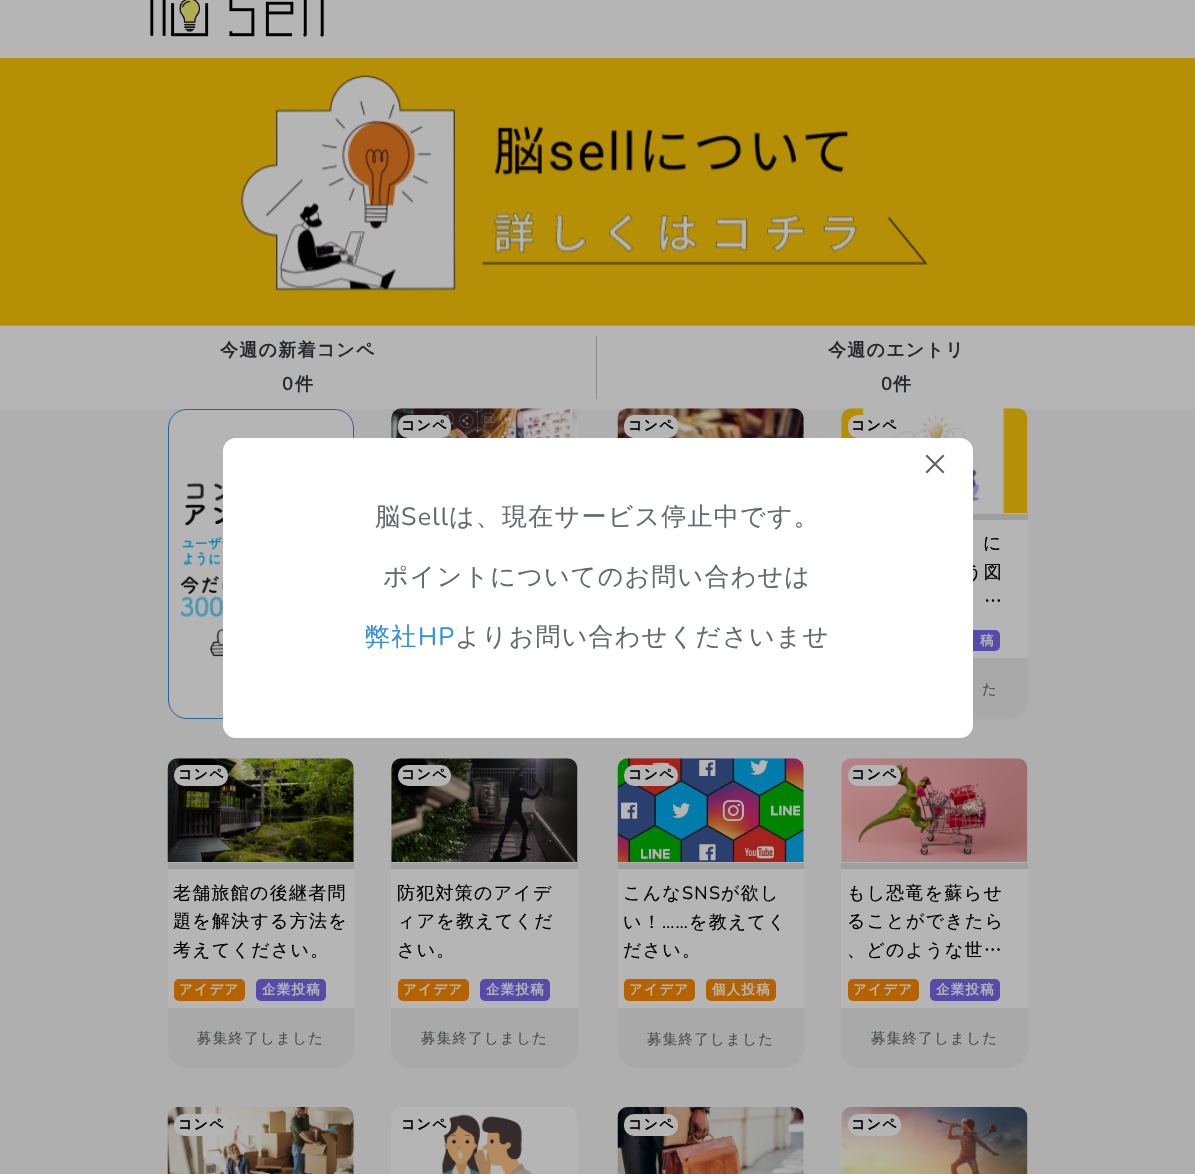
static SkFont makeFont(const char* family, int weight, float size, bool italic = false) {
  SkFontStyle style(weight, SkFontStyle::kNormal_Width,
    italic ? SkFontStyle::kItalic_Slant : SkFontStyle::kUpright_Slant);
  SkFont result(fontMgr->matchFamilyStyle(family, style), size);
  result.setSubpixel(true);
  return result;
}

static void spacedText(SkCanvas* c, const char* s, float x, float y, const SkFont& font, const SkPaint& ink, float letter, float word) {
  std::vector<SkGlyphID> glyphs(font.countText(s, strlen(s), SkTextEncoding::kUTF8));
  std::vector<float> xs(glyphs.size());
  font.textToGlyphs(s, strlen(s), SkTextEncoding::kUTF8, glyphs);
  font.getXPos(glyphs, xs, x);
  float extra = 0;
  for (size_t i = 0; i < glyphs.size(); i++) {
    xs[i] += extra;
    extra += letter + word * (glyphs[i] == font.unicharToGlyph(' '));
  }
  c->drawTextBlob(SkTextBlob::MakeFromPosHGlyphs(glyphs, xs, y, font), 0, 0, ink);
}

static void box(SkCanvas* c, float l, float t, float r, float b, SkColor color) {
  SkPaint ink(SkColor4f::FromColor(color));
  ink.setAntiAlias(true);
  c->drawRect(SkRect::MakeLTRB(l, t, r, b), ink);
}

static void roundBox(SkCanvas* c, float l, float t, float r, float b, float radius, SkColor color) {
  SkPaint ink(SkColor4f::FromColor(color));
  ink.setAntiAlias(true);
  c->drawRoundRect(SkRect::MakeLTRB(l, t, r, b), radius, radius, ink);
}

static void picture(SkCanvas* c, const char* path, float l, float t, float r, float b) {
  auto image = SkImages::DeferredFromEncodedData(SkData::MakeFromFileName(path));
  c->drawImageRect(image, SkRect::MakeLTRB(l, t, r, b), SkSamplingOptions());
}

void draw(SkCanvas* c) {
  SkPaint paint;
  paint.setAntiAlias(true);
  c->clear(0xffafafaf);
  box(c, 0, 0, 1195, 58, 0xffb5b5b5);
  picture(c, "img_01.png", 150, 0, 324, 37);
  picture(c, "img_02.png", 0, 58, 1195, 326);
  box(c, 0, 326, 1195, 409, 0xffb5b5b5);
  box(c, 596, 336, 597, 399, 0xff8b8b8b);
  SkFont face1 = makeFont("WenQuanYi Zen Hei", 700, 18);
  paint.setColor(0xff25292d);
  spacedText(c, "今週の新着コンペ", 220, 356, face1, paint, 1.25f, 0);
  SkFont face2 = makeFont("Nunito", 700, 18);
  spacedText(c, "0", 282, 390, face2, paint, 1.25f, 0);
  spacedText(c, "件", 295, 390, face1, paint, 1.25f, 0);
  spacedText(c, "今週のエントリ", 828, 356, face1, paint, 1.25f, 0);
  spacedText(c, "0", 881, 390, face2, paint, 1.25f, 0);
  spacedText(c, "件", 893, 390, face1, paint, 1.25f, 0);
  paint.setColor(0xffb5b5b5);
  c->drawRoundRect(SkRect::MakeLTRB(168.5f, 409.5f, 353.5f, 718.5f), 18.5f, 18.5f, paint);
  paint.setStyle(SkPaint::kStroke_Style);
  paint.setStrokeWidth(1);
  paint.setColor(0xff25669c);
  c->drawRoundRect(SkRect::MakeLTRB(168.5f, 409.5f, 353.5f, 718.5f), 18.5f, 18.5f, paint);
  picture(c, "img_03.png", 168, 472, 223, 657);
  roundBox(c, 391, 409, 578, 719, 19, 0xffb5b5b5);
  picture(c, "img_04.png", 391, 408, 578, 438);
  roundBox(c, 398, 415, 451, 438, 10, 0xffb5b5b5);
  SkFont face3 = makeFont("WenQuanYi Zen Hei", 700, 14);
  paint.setStyle(SkPaint::kFill_Style);
  paint.setColor(0xff000000);
  spacedText(c, "コンペ", 401, 430, face3, paint, 1.25f, 0);
  roundBox(c, 618, 409, 804, 719, 19, 0xffb5b5b5);
  picture(c, "img_05.png", 617, 408, 804, 438);
  roundBox(c, 624, 415, 678, 438, 10, 0xffb5b5b5);
  spacedText(c, "コンペ", 628, 430, face3, paint, 1.25f, 0);
  roundBox(c, 841, 409, 1028, 719, 19, 0xffb5b5b5);
  picture(c, "img_06.png", 841, 408, 1028, 514);
  box(c, 973, 514, 1028, 520, 0xff9e9e9e);
  roundBox(c, 848, 415, 901, 438, 10, 0xffb5b5b5);
  spacedText(c, "コンペ", 851, 430, face3, paint, 1.25f, 0);
  SkFont face4 = makeFont("WenQuanYi Zen Hei", 500, 18);
  spacedText(c, "に", 983, 549, face4, paint, 1.25f, 0);
  spacedText(c, "う図", 964, 578, face4, paint, 1.25f, 0);
  spacedText(c, "…", 984, 607, face4, paint, 1.25f, 0);
  roundBox(c, 930, 630, 1000, 651, 5, 0xff574aa9);
  SkFont face5 = makeFont("WenQuanYi Zen Hei", 700, 13.5f);
  paint.setColor(0xffb5b5b5);
  spacedText(c, "稿", 980, 645, face5, paint, 1.25f, 0);
  paint.setColor(0xffa9a9a9);
  c->drawPath(SkPathBuilder().moveTo(841, 658).lineTo(1028, 658).lineTo(1028, 700).cubicTo(1028, 710.5f, 1019.5f, 719, 1009, 719).lineTo(860, 719).cubicTo(849.5f, 719, 841, 710.5f, 841, 700).close().detach(), paint);
  SkFont face6 = makeFont("WenQuanYi Zen Hei", 500, 14.5f);
  paint.setColor(0xff464c4f);
  spacedText(c, "た", 982, 694, face6, paint, 1.25f, 0);
  roundBox(c, 168, 759, 354, 1068, 19, 0xffb5b5b5);
  picture(c, "img_07.png", 167, 758, 354, 862);
  box(c, 168, 863, 354, 869, 0xff9e9e9e);
  roundBox(c, 174, 765, 228, 786, 10, 0xffb5b5b5);
  paint.setColor(0xff000000);
  spacedText(c, "コンペ", 178, 779, face3, paint, 1.25f, 0);
  spacedText(c, "老舗旅館の後継者問", 173, 899, face4, paint, 1.25f, 0);
  spacedText(c, "題を解決する方法を", 173, 927, face4, paint, 1.25f, 0);
  spacedText(c, "考えてください。", 173, 956, face4, paint, 1.25f, 0);
  roundBox(c, 174, 979, 245, 1001, 5, 0xffb56300);
  paint.setColor(0xffb5b5b5);
  spacedText(c, "アイデア", 179, 994, face5, paint, 1.25f, 0);
  roundBox(c, 256, 979, 326, 1001, 5, 0xff574aa9);
  spacedText(c, "企業投稿", 262, 994, face5, paint, 1.25f, 0);
  paint.setColor(0xffa9a9a9);
  c->drawPath(SkPathBuilder().moveTo(168, 1008).lineTo(354, 1008).lineTo(354, 1049).cubicTo(354, 1059.5f, 345.5f, 1068, 335, 1068).lineTo(187, 1068).cubicTo(176.5f, 1068, 168, 1059.5f, 168, 1049).close().detach(), paint);
  paint.setColor(0xff464c4f);
  spacedText(c, "募集終了しました", 197, 1043, face6, paint, 1.25f, 0);
  roundBox(c, 391, 759, 578, 1068, 19, 0xffb5b5b5);
  picture(c, "img_08.png", 391, 758, 578, 862);
  box(c, 391, 863, 578, 869, 0xff9e9e9e);
  roundBox(c, 398, 765, 451, 786, 10, 0xffb5b5b5);
  paint.setColor(0xff000000);
  spacedText(c, "コンペ", 401, 779, face3, paint, 1.25f, 0);
  spacedText(c, "防犯対策のアイデ", 397, 899, face4, paint, 1.25f, 0);
  spacedText(c, "ィアを教えてくだ", 397, 927, face4, paint, 1.25f, 0);
  spacedText(c, "さい。", 397, 956, face4, paint, 1.25f, 0);
  roundBox(c, 398, 979, 469, 1001, 5, 0xffb56300);
  paint.setColor(0xffb5b5b5);
  spacedText(c, "アイデア", 403, 994, face5, paint, 1.25f, 0);
  roundBox(c, 480, 979, 550, 1001, 5, 0xff574aa9);
  spacedText(c, "企業投稿", 486, 994, face5, paint, 1.25f, 0);
  paint.setColor(0xffa9a9a9);
  c->drawPath(SkPathBuilder().moveTo(391, 1008).lineTo(578, 1008).lineTo(578, 1049).cubicTo(578, 1059.5f, 569.5f, 1068, 559, 1068).lineTo(410, 1068).cubicTo(399.5f, 1068, 391, 1059.5f, 391, 1049).close().detach(), paint);
  paint.setColor(0xff464c4f);
  spacedText(c, "募集終了しました", 421, 1043, face6, paint, 1.25f, 0);
  roundBox(c, 618, 759, 804, 1068, 19, 0xffb5b5b5);
  picture(c, "img_09.png", 617, 758, 804, 862);
  box(c, 618, 863, 804, 869, 0xff9e9e9e);
  roundBox(c, 624, 765, 678, 786, 10, 0xffb5b5b5);
  paint.setColor(0xff000000);
  spacedText(c, "コンペ", 628, 779, face3, paint, 1.25f, 0);
  spacedText(c, "こんな", 623, 899, face4, paint, 1.25f, 0);
  SkFont face7 = makeFont("Nunito", 200, 18);
  spacedText(c, "SNS", 682, 899, face7, paint, 1.25f, 0);
  spacedText(c, "が欲し", 721, 899, face4, paint, 1.25f, 0);
  spacedText(c, "い！", 623, 928, face4, paint, 1.25f, 0);
  spacedText(c, "……", 662, 928, face7, paint, 1.25f, 0);
  spacedText(c, "を教えてく", 689, 928, face4, paint, 1.25f, 0);
  spacedText(c, "ださい。", 623, 956, face4, paint, 1.25f, 0);
  roundBox(c, 624, 979, 695, 1001, 5, 0xffb56300);
  paint.setColor(0xffb5b5b5);
  spacedText(c, "アイデア", 629, 994, face5, paint, 1.25f, 0);
  roundBox(c, 706, 979, 776, 1001, 5, 0xffb56300);
  spacedText(c, "個人投稿", 712, 994, face5, paint, 1.25f, 0);
  paint.setColor(0xffa9a9a9);
  c->drawPath(SkPathBuilder().moveTo(618, 1008).lineTo(804, 1008).lineTo(804, 1049).cubicTo(804, 1059.5f, 795.5f, 1068, 785, 1068).lineTo(637, 1068).cubicTo(626.5f, 1068, 618, 1059.5f, 618, 1049).close().detach(), paint);
  paint.setColor(0xff464c4f);
  spacedText(c, "募集終了しました", 647, 1044, face6, paint, 1.25f, 0);
  roundBox(c, 841, 759, 1028, 1068, 19, 0xffb5b5b5);
  picture(c, "img_10.png", 841, 758, 1028, 862);
  box(c, 841, 863, 1028, 869, 0xff9e9e9e);
  roundBox(c, 848, 765, 901, 786, 10, 0xffb5b5b5);
  paint.setColor(0xff000000);
  spacedText(c, "コンペ", 851, 779, face3, paint, 1.25f, 0);
  spacedText(c, "もし恐竜を蘇らせ", 847, 899, face4, paint, 1.25f, 0);
  spacedText(c, "ることができたら", 847, 927, face4, paint, 1.25f, 0);
  spacedText(c, "、どのような世…", 847, 956, face4, paint, 1.25f, 0);
  roundBox(c, 848, 979, 919, 1001, 5, 0xffb56300);
  paint.setColor(0xffb5b5b5);
  spacedText(c, "アイデア", 853, 994, face5, paint, 1.25f, 0);
  roundBox(c, 930, 979, 1000, 1001, 5, 0xff574aa9);
  spacedText(c, "企業投稿", 936, 994, face5, paint, 1.25f, 0);
  paint.setColor(0xffa9a9a9);
  c->drawPath(SkPathBuilder().moveTo(841, 1008).lineTo(1028, 1008).lineTo(1028, 1049).cubicTo(1028, 1059.5f, 1019.5f, 1068, 1009, 1068).lineTo(860, 1068).cubicTo(849.5f, 1068, 841, 1059.5f, 841, 1049).close().detach(), paint);
  paint.setColor(0xff464c4f);
  spacedText(c, "募集終了しました", 871, 1043, face6, paint, 1.25f, 0);
  roundBox(c, 168, 1108, 354, 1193, 19, 0xffb5b5b5);
  picture(c, "img_11.png", 167, 1107, 354, 1174);
  roundBox(c, 174, 1114, 228, 1136, 10, 0xffb5b5b5);
  paint.setColor(0xff000000);
  spacedText(c, "コンペ", 178, 1129, face3, paint, 1.25f, 0);
  roundBox(c, 391, 1108, 578, 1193, 19, 0xffb5b5b5);
  picture(c, "img_12.png", 391, 1107, 577, 1174);
  roundBox(c, 398, 1114, 451, 1136, 10, 0xffb5b5b5);
  spacedText(c, "コンペ", 401, 1129, face3, paint, 1.25f, 0);
  roundBox(c, 618, 1108, 804, 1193, 19, 0xffb5b5b5);
  picture(c, "img_13.png", 617, 1107, 804, 1174);
  roundBox(c, 624, 1114, 678, 1136, 10, 0xffb5b5b5);
  spacedText(c, "コンペ", 628, 1129, face3, paint, 1.25f, 0);
  roundBox(c, 841, 1108, 1028, 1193, 19, 0xffb5b5b5);
  picture(c, "img_14.png", 841, 1107, 1028, 1174);
  roundBox(c, 848, 1114, 901, 1136, 10, 0xffb5b5b5);
  spacedText(c, "コンペ", 851, 1129, face3, paint, 1.25f, 0);
  roundBox(c, 223, 438, 973, 738, 13, 0xffffffff);
  paint.setColor(0xff636363);
  c->drawPath(SkPathBuilder().moveTo(927, 454.5f).lineTo(944.5f, 472).lineTo(943, 473.5f).lineTo(925.5f, 456).close().detach(), paint);
  c->drawPath(SkPathBuilder().moveTo(925.5f, 472).lineTo(943, 454.5f).lineTo(944.5f, 456).lineTo(927, 473.5f).close().detach(), paint);
  SkFont face8 = makeFont("WenQuanYi Zen Hei", 500, 25);
  paint.setColor(0xff636b6f);
  spacedText(c, "脳", 375, 525, face8, paint, 1.25f, 0);
  SkFont face9 = makeFont("Nunito", 200, 25);
  spacedText(c, "Sell", 401, 525, face9, paint, 1.25f, 0);
  spacedText(c, "は、現在サービス停止中です。", 449, 525, face8, paint, 1.25f, 0);
  spacedText(c, "ポイントについてのお問い合わせは", 383, 585, face8, paint, 1.25f, 0);
  paint.setColor(0xff3490dc);
  spacedText(c, "弊社", 365, 645, face8, paint, 1.25f, 0);
  spacedText(c, "HP", 418, 645, face9, paint, 1.25f, 0);
  paint.setColor(0xff636b6f);
  spacedText(c, "よりお問い合わせくださいませ", 455, 645, face8, paint, 1.25f, 0);
}
